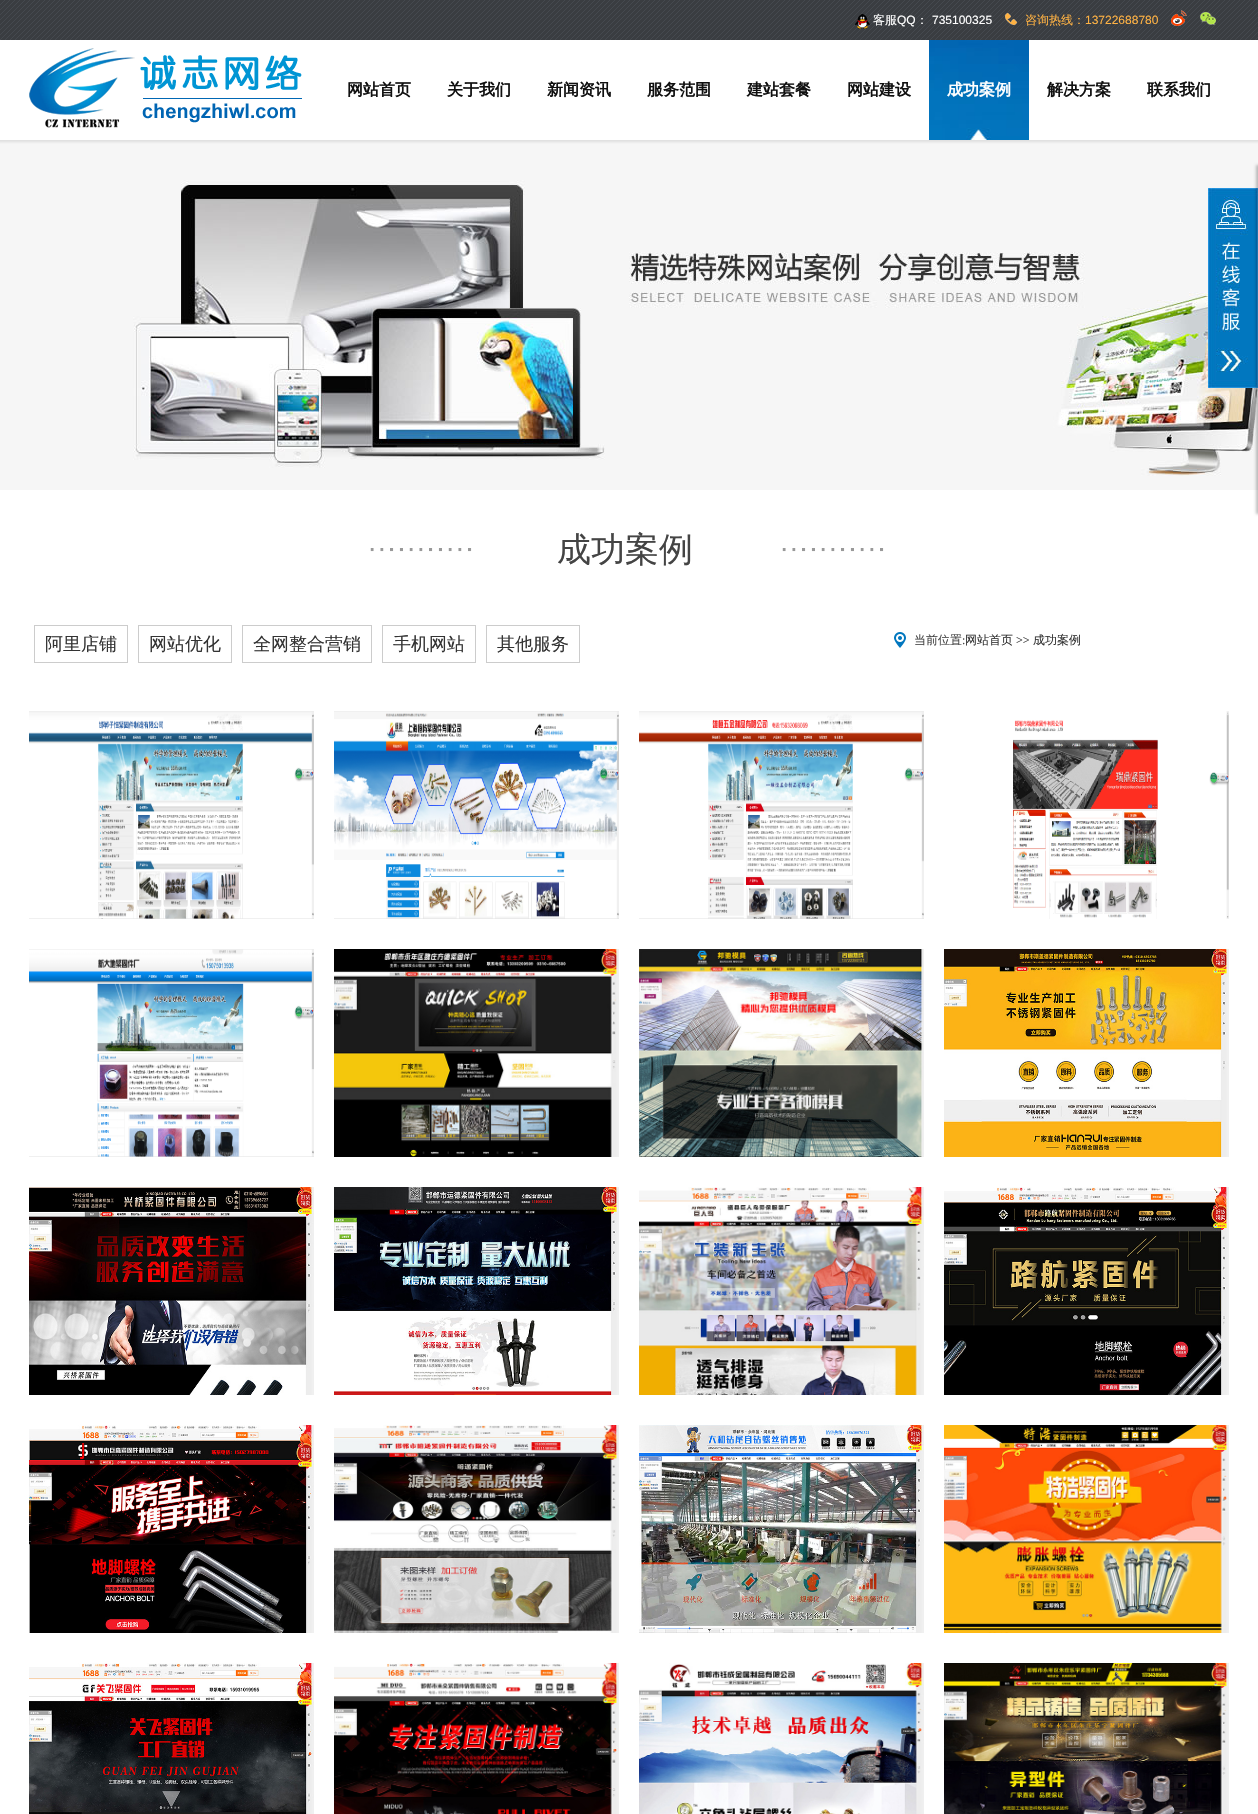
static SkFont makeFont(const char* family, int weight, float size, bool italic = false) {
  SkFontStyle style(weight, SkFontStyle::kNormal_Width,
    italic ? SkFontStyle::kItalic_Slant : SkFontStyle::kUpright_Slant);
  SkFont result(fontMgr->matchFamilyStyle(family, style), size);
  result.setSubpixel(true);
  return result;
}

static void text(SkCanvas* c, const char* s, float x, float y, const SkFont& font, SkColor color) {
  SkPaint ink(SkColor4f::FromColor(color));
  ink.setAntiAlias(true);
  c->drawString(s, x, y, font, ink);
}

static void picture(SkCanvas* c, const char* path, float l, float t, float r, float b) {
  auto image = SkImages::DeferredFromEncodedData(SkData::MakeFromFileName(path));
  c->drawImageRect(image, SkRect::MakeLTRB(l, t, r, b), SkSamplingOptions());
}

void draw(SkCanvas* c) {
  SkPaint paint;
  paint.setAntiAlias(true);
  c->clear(0xffffffff);
  picture(c, "img_01.png", 0, 0, 1258, 40);
  picture(c, "img_02.png", 855, 14, 870, 29);
  SkFont face1 = makeFont("WenQuanYi Zen Hei", 500, 12);
  text(c, "客服", 873, 24, face1, 0xffffffff);
  SkFont face2 = makeFont("Liberation Sans", 400, 12);
  text(c, "QQ", 897, 24, face2, 0xffffffff);
  text(c, "：", 916, 24, face1, 0xffffffff);
  text(c, "735100325", 932, 24, face2, 0xffffffff);
  picture(c, "img_03.png", 1005, 13, 1017, 25);
  text(c, "咨询热线：", 1025, 24, face1, 0xffffb243);
  text(c, "13722688780", 1085, 24, face2, 0xffffb243);
  picture(c, "img_04.png", 1171, 10, 1187, 26);
  picture(c, "img_05.png", 1200, 12, 1216, 25);
  picture(c, "img_06.png", 29, 48, 302, 128);
  SkFont face3 = makeFont("WenQuanYi Zen Hei", 700, 16);
  text(c, "网站首页", 347, 95, face3, 0xff101010);
  text(c, "关于我们", 447, 95, face3, 0xff101010);
  text(c, "新闻资讯", 547, 95, face3, 0xff101010);
  text(c, "服务范围", 647, 95, face3, 0xff101010);
  text(c, "建站套餐", 747, 95, face3, 0xff101010);
  text(c, "网站建设", 847, 95, face3, 0xff101010);
  picture(c, "img_07.png", 929, 40, 1029, 140);
  text(c, "成功案例", 947, 95, face3, 0xffffffff);
  text(c, "解决方案", 1047, 95, face3, 0xff101010);
  text(c, "联系我们", 1147, 95, face3, 0xff101010);
  picture(c, "img_09.png", 0, 140, 1258, 490);
  picture(c, "img_08.png", 1208, 188, 1258, 388);
  paint.setColor(0x40000000);
  paint.setMaskFilter(SkMaskFilter::MakeBlur(kNormal_SkBlurStyle, 1.5f));
  c->drawRect(SkRect::MakeLTRB(1256, 165, 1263, 514), paint);
  paint.setMaskFilter(nullptr);
  picture(c, "img_10.png", 370, 548, 472, 552);
  SkFont face4 = makeFont("WenQuanYi Zen Hei", 500, 34);
  text(c, "成功案例", 557, 561, face4, 0xff444444);
  picture(c, "img_10.png", 782, 548, 884, 552);
  paint.setStyle(SkPaint::kStroke_Style);
  paint.setStrokeWidth(1);
  paint.setColor(0xffcccccc);
  c->drawRect(SkRect::MakeLTRB(34.5f, 625.5f, 127.5f, 662.5f), paint);
  SkFont face5 = makeFont("WenQuanYi Zen Hei", 500, 18);
  text(c, "阿里店铺", 45, 650, face5, 0xff333333);
  c->drawRect(SkRect::MakeLTRB(138.5f, 625.5f, 231.5f, 662.5f), paint);
  text(c, "网站优化", 149, 650, face5, 0xff333333);
  c->drawRect(SkRect::MakeLTRB(242.5f, 625.5f, 371.5f, 662.5f), paint);
  text(c, "全网整合营销", 253, 650, face5, 0xff333333);
  c->drawRect(SkRect::MakeLTRB(382.5f, 625.5f, 475.5f, 662.5f), paint);
  text(c, "手机网站", 393, 650, face5, 0xff333333);
  c->drawRect(SkRect::MakeLTRB(486.5f, 625.5f, 579.5f, 662.5f), paint);
  text(c, "其他服务", 497, 650, face5, 0xff333333);
  picture(c, "img_11.png", 894, 632, 906, 648);
  text(c, "当前位置", 914, 644, face1, 0xff444444);
  SkFont face6 = makeFont("Liberation Serif", 400, 12);
  text(c, ":", 962, 644, face6, 0xff444444);
  text(c, "网站首页", 965, 644, face1, 0xff333333);
  text(c, ">>", 1016, 644, face6, 0xff444444);
  text(c, "成功案例", 1033, 644, face1, 0xff333333);
  picture(c, "img_12.png", 29, 711, 314, 919);
  picture(c, "img_13.png", 334, 711, 619, 919);
  picture(c, "img_14.png", 639, 711, 924, 919);
  picture(c, "img_15.png", 1013, 711, 1229, 919);
  picture(c, "img_16.png", 29, 949, 314, 1157);
  picture(c, "img_17.png", 334, 949, 619, 1157);
  picture(c, "img_18.png", 639, 949, 924, 1157);
  picture(c, "img_19.png", 944, 949, 1229, 1157);
  picture(c, "img_20.png", 29, 1187, 314, 1395);
  picture(c, "img_21.png", 334, 1187, 619, 1395);
  picture(c, "img_22.png", 639, 1187, 924, 1395);
  picture(c, "img_23.png", 944, 1187, 1229, 1395);
  picture(c, "img_24.png", 29, 1425, 314, 1633);
  picture(c, "img_25.png", 334, 1425, 619, 1633);
  picture(c, "img_26.png", 639, 1425, 924, 1633);
  picture(c, "img_27.png", 944, 1425, 1229, 1633);
  picture(c, "img_28.png", 29, 1663, 314, 1814);
  picture(c, "img_29.png", 334, 1663, 619, 1814);
  picture(c, "img_30.png", 639, 1663, 924, 1814);
  picture(c, "img_31.png", 944, 1663, 1229, 1814);
}
